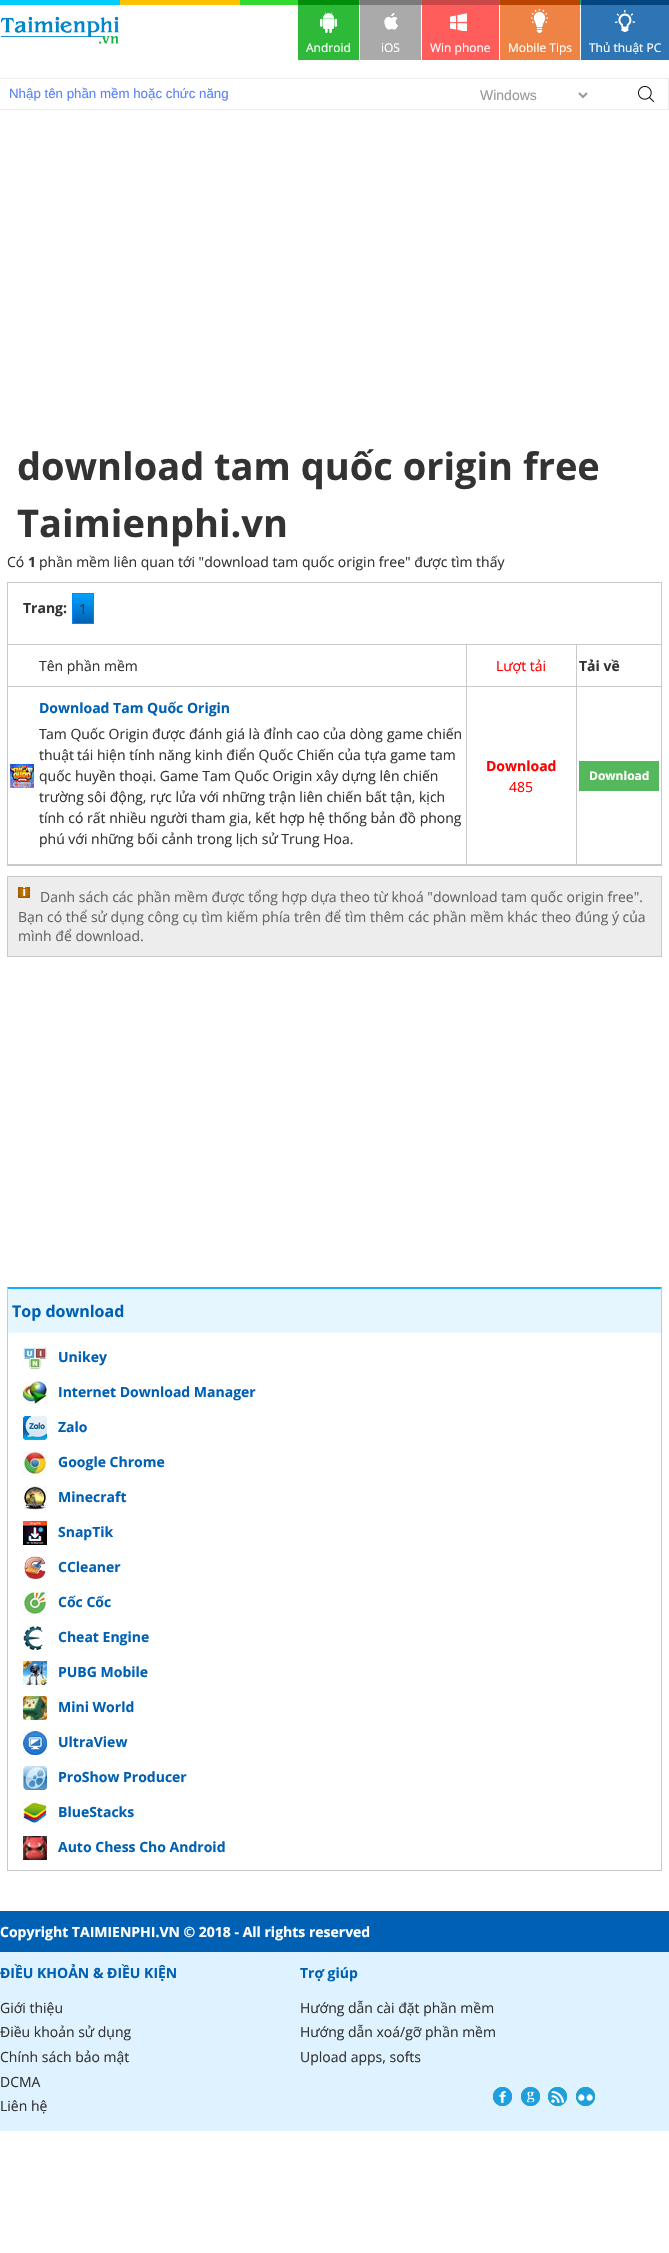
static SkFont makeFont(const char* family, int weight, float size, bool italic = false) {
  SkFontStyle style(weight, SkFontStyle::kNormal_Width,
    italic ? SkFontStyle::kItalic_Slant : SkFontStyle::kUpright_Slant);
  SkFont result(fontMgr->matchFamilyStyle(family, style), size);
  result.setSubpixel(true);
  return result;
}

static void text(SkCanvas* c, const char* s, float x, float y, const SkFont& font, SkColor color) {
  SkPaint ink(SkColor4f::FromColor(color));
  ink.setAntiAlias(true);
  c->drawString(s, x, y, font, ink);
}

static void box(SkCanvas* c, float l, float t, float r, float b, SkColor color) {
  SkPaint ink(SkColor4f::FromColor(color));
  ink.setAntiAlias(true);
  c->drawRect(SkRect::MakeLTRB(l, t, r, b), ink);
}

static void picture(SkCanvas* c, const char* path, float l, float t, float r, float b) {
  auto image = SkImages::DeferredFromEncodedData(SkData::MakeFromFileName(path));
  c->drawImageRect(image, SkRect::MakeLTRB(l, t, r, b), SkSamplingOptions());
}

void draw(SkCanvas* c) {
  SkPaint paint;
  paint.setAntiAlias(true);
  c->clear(0xffffffff);
  box(c, 298, 5, 359, 60, 0xff2eb938);
  picture(c, "img_06.png", 0, 0, 581, 5);
  box(c, 298, 0, 359, 5, 0xff018e0b);
  picture(c, "img_01.png", 320, 12, 337, 33);
  SkFont face1 = makeFont("Open Sans", 400, 12);
  text(c, "Android", 306, 52, face1, 0xffffffff);
  box(c, 360, 5, 421, 60, 0xffaaaaaa);
  box(c, 360, 0, 421, 5, 0xff7a7a7a);
  picture(c, "img_02.png", 384, 13, 398, 30);
  text(c, "iOS", 381, 52, face1, 0xffffffff);
  box(c, 422, 5, 499, 60, 0xffff5c5c);
  box(c, 422, 0, 499, 5, 0xffca4747);
  picture(c, "img_03.png", 450, 13, 467, 31);
  text(c, "Win phone", 430, 52, face1, 0xffffffff);
  box(c, 500, 5, 580, 60, 0xffee8345);
  box(c, 500, 0, 580, 5, 0xffb84400);
  picture(c, "img_04.png", 531, 9, 548, 33);
  text(c, "Mobile Tips", 508, 52, face1, 0xffffffff);
  box(c, 581, 5, 669, 60, 0xff2e75b6);
  box(c, 581, 0, 669, 5, 0xff034581);
  picture(c, "img_05.png", 615, 10, 635, 32);
  text(c, "Thủ thuật PC", 589, 52, face1, 0xffffffff);
  picture(c, "img_07.png", 0, 16, 120, 44);
  paint.setStyle(SkPaint::kStroke_Style);
  paint.setStrokeWidth(1);
  paint.setColor(0xffececec);
  c->drawRect(SkRect::MakeLTRB(-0.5f, 78.5f, 668.5f, 109.5f), paint);
  SkFont face2 = makeFont("Liberation Sans", 400, 13.3f);
  text(c, "Nhập tên phần mềm hoặc chức năng", 9, 98, face2, 0xff5883fa);
  paint.setStrokeWidth(2);
  paint.setColor(0xff999999);
  c->drawPath(SkPathBuilder().moveTo(579, 93).lineTo(583, 97).lineTo(587, 93).detach(), paint);
  SkFont face3 = makeFont("Liberation Sans", 400, 14);
  text(c, "Windows", 480, 100, face3, 0xff999999);
  picture(c, "img_08.png", 638, 86, 654, 102);
  SkFont face4 = makeFont("Open Sans", 700, 38);
  text(c, "download tam quốc origin free", 17, 480, face4, 0xff333333);
  text(c, "Taimienphi.vn", 17, 537, face4, 0xff333333);
  SkFont face5 = makeFont("Open Sans", 400, 14);
  text(c, "Có", 7, 567, face5, 0xff333333);
  SkFont face6 = makeFont("Open Sans", 700, 14);
  text(c, "1", 28, 567, face6, 0xff333333);
  text(c, "phần mềm liên quan tới \"download tam quốc origin free\" được tìm thấy", 39, 567, face5, 0xff333333);
  paint.setStrokeWidth(1);
  paint.setColor(0xffc9c9c9);
  c->drawRect(SkRect::MakeLTRB(7.5f, 582.5f, 661.5f, 865.5f), paint);
  text(c, "Trang:", 23, 613, face6, 0xff333333);
  paint.setStyle(SkPaint::kFill_Style);
  {
    const SkColor colors[] = {0xff00a2ff, 0xff0060b3};
    const float stops[] = {0, 1};
    const SkPoint ends[] = {{83, 594}, {83, 623}};
    paint.setShader(SkGradientShader::MakeLinear(ends, colors, stops, 2, SkTileMode::kClamp));
    paint.setAlpha(255);
  }
  c->drawRect(SkRect::MakeLTRB(73, 594, 93, 623), paint);
  paint.setStyle(SkPaint::kStroke_Style);
  paint.setShader(nullptr);
  paint.setColor(0xff0089ff);
  c->drawRect(SkRect::MakeLTRB(72.5f, 593.5f, 93.5f, 623.5f), paint);
  text(c, "1", 79, 614, face5, 0xff333333);
  box(c, 7, 644, 662, 645, 0xffc9c9c9);
  box(c, 7, 686, 662, 687, 0xffc9c9c9);
  text(c, "Tên phần mềm", 39, 671, face5, 0xff333333);
  text(c, "Lượt tải", 496, 671, face5, 0xffff0000);
  text(c, "Tải về", 579, 671, face6, 0xff333333);
  box(c, 7, 864, 662, 865, 0xffc9c9c9);
  picture(c, "img_09.png", 10, 764, 34, 788);
  box(c, 466, 644, 467, 865, 0xffc9c9c9);
  text(c, "Download Tam Quốc Origin", 39, 713, face6, 0xff0060b3);
  SkFont face7 = makeFont("Noto Sans", 400, 14);
  text(c, "T", 39, 739, face7, 0xff333333);
  text(c, "am Quốc Origin được đánh giá là đỉnh cao của dòng", 46, 739, face5, 0xff333333);
  text(c, "game chiến", 387, 739, face5, 0xff333333);
  text(c, "thuật", 39, 760, face5, 0xff333333);
  text(c, "tái hiện tính năng kinh điển Quốc Chiến của tựa game tam", 77, 760, face5, 0xff333333);
  text(c, "quốc huyền thoại. Game Tam Quốc Origin xây dựng lên chiến", 39, 781, face5, 0xff333333);
  text(c, "trường sôi động, rực lửa với những trận liên chiến bất tận, kịch", 39, 802, face5, 0xff333333);
  text(c, "tính có rất nhiều người tham gia, kết hợp hệ thống bản đồ phong", 39, 823, face5, 0xff333333);
  text(c, "phú với những bối cảnh trong lịch sử Trung Hoa.", 39, 844, face5, 0xff333333);
  box(c, 576, 644, 577, 865, 0xffc9c9c9);
  text(c, "Download", 486, 771, face6, 0xffff0000);
  text(c, "485", 509, 792, face5, 0xffff0000);
  box(c, 579, 761, 659, 791, 0xff55b85c);
  SkFont face8 = makeFont("Open Sans", 700, 12);
  text(c, "Download", 589, 780, face8, 0xffffffff);
  paint.setStyle(SkPaint::kFill_Style);
  paint.setColor(0xffeeedee);
  c->drawRect(SkRect::MakeLTRB(7.5f, 876.5f, 661.5f, 956.5f), paint);
  paint.setStyle(SkPaint::kStroke_Style);
  paint.setColor(0xffc9c9c9);
  c->drawRect(SkRect::MakeLTRB(7.5f, 876.5f, 661.5f, 956.5f), paint);
  picture(c, "img_10.png", 18, 887, 30, 898);
  text(c, "Danh sách các phần mềm được tổng hợp dựa theo từ khoá \"download tam quốc origin free\".", 40, 902, face5, 0xff666666);
  text(c, "Bạn có thể sử dụng công cụ tìm kiếm phía trên để tìm thêm các phần mềm khác theo đúng ý của", 18, 922, face5, 0xff666666);
  text(c, "mình để download.", 18, 941, face5, 0xff666666);
  paint.setStyle(SkPaint::kFill_Style);
  paint.setColor(0xff14afff);
  c->drawPath(SkPathBuilder().moveTo(7, 1287).lineTo(662, 1287).lineTo(661, 1289).lineTo(8, 1289).close().detach(), paint);
  paint.setColor(0xffc9c9c9);
  c->drawPath(SkPathBuilder().moveTo(662, 1287).lineTo(662, 1871).lineTo(661, 1870).lineTo(661, 1289).close().detach(), paint);
  box(c, 7, 1870, 662, 1871, 0xffc9c9c9);
  c->drawPath(SkPathBuilder().moveTo(7, 1871).lineTo(7, 1287).lineTo(8, 1289).lineTo(8, 1870).close().detach(), paint);
  box(c, 8, 1289, 661, 1333, 0xffe5f6ff);
  SkFont face9 = makeFont("Open Sans", 700, 16);
  text(c, "Top download", 12, 1317, face9, 0xff0060b3);
  picture(c, "img_11.png", 23, 1347, 47, 1369);
  text(c, "Unikey", 58, 1362, face6, 0xff0060b3);
  picture(c, "img_12.png", 23, 1381, 47, 1405);
  text(c, "Internet Download Manager", 58, 1397, face6, 0xff0060b3);
  picture(c, "img_13.png", 23, 1416, 47, 1440);
  text(c, "Zalo", 58, 1432, face6, 0xff0060b3);
  picture(c, "img_14.png", 23, 1451, 47, 1475);
  text(c, "Google Chrome", 58, 1467, face6, 0xff0060b3);
  picture(c, "img_15.png", 23, 1486, 47, 1510);
  text(c, "Minecraft", 58, 1502, face6, 0xff0060b3);
  picture(c, "img_16.png", 23, 1521, 47, 1545);
  text(c, "SnapTik", 58, 1537, face6, 0xff0060b3);
  picture(c, "img_17.png", 24, 1556, 46, 1580);
  text(c, "CCleaner", 58, 1572, face6, 0xff0060b3);
  picture(c, "img_18.png", 23, 1591, 47, 1615);
  text(c, "Cốc Cốc", 58, 1607, face6, 0xff0060b3);
  picture(c, "img_19.png", 23, 1626, 43, 1650);
  text(c, "Cheat Engine", 58, 1642, face6, 0xff0060b3);
  picture(c, "img_20.png", 23, 1661, 47, 1685);
  text(c, "PUBG Mobile", 58, 1677, face6, 0xff0060b3);
  picture(c, "img_21.png", 23, 1696, 47, 1720);
  text(c, "Mini World", 58, 1712, face6, 0xff0060b3);
  picture(c, "img_22.png", 23, 1731, 47, 1755);
  text(c, "UltraView", 58, 1747, face6, 0xff0060b3);
  picture(c, "img_23.png", 23, 1766, 47, 1790);
  text(c, "ProShow Producer", 58, 1782, face6, 0xff0060b3);
  picture(c, "img_24.png", 23, 1801, 47, 1825);
  text(c, "BlueStacks", 58, 1817, face6, 0xff0060b3);
  picture(c, "img_25.png", 23, 1836, 47, 1860);
  text(c, "Auto Chess Cho Android", 58, 1852, face6, 0xff0060b3);
  box(c, 0, 1911, 669, 1952, 0xff0060b3);
  text(c, "Copyright TAIMIENPHI.VN © 2018 - All rights reserved", 0, 1937, face6, 0xffffffff);
  box(c, 0, 1952, 669, 2131, 0xffdff2ff);
  text(c, "ĐIỀU KHOẢN & ĐIỀU KIỆN", 0, 1978, face6, 0xff0060b3);
  text(c, "Giới thiệu", 0, 2013, face5, 0xff333333);
  text(c, "Điều khoản sử dụng", 0, 2037, face5, 0xff333333);
  text(c, "Chính sách bảo mật", 0, 2062, face5, 0xff333333);
  text(c, "DCMA", 0, 2087, face5, 0xff333333);
  text(c, "Liên hệ", 0, 2111, face5, 0xff333333);
  text(c, "Trợ giúp", 300, 1978, face6, 0xff0060b3);
  text(c, "Hướng dẫn cài đặt phần mềm", 300, 2013, face5, 0xff333333);
  text(c, "Hướng dẫn xoá/gỡ phần mềm", 300, 2037, face5, 0xff333333);
  text(c, "Upload apps, softs", 300, 2062, face5, 0xff333333);
  picture(c, "img_26.png", 493, 2087, 512, 2106);
  picture(c, "img_27.png", 493, 2087, 512, 2106);
  picture(c, "img_26.png", 521, 2087, 540, 2106);
  picture(c, "img_28.png", 521, 2087, 540, 2106);
  picture(c, "img_26.png", 548, 2087, 567, 2106);
  picture(c, "img_29.png", 548, 2087, 567, 2106);
  picture(c, "img_26.png", 576, 2087, 595, 2106);
  picture(c, "img_30.png", 576, 2087, 595, 2106);
}
